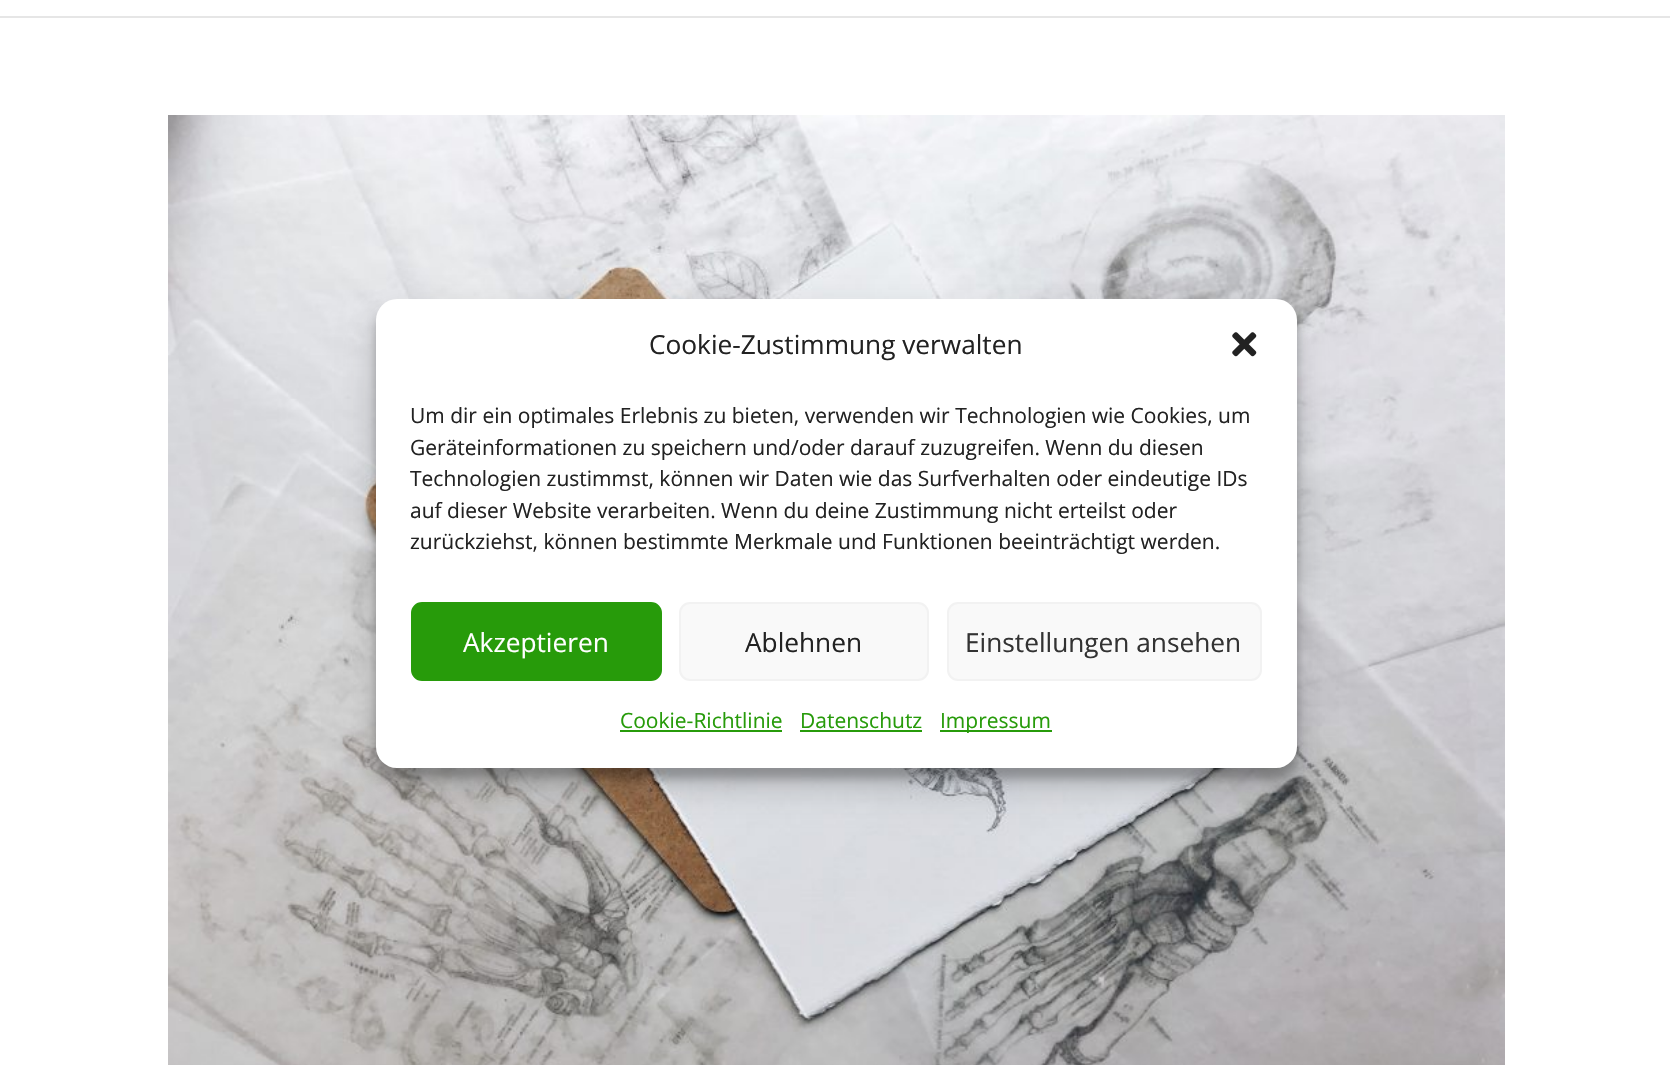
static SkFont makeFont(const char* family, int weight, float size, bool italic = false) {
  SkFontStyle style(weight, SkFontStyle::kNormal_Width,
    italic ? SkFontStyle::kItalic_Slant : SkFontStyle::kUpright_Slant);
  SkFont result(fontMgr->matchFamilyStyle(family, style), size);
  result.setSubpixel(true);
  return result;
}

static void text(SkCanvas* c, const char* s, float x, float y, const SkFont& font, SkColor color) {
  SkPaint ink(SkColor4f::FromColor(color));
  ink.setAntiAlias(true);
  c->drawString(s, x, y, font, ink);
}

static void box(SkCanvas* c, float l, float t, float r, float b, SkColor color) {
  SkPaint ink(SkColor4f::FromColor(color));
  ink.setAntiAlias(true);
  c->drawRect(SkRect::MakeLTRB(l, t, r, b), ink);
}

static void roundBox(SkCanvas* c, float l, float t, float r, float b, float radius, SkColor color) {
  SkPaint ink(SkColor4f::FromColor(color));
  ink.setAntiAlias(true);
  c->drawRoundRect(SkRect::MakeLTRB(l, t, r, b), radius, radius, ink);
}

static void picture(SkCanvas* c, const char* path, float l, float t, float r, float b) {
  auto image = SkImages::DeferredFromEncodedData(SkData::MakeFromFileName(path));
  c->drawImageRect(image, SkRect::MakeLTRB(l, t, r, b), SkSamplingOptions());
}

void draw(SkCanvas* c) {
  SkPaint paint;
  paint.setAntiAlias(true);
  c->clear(0xffffffff);
  box(c, 0, 16, 1670, 18, 0xffe6e6e6);
  picture(c, "img_01.png", 168, 115, 1505, 1065);
  paint.setColor(0x3b000000);
  paint.setMaskFilter(SkMaskFilter::MakeBlur(kNormal_SkBlurStyle, 5));
  c->drawRoundRect(SkRect::MakeLTRB(376, 310, 1297, 779), 21, 21, paint);
  paint.setMaskFilter(nullptr);
  paint.setColor(0x30000000);
  paint.setMaskFilter(SkMaskFilter::MakeBlur(kNormal_SkBlurStyle, 17.5f));
  c->drawRoundRect(SkRect::MakeLTRB(376, 317, 1297, 786), 21, 21, paint);
  paint.setMaskFilter(nullptr);
  roundBox(c, 376, 299, 1297, 768, 21, 0xffffffff);
  SkFont face1 = makeFont("Open Sans", 400, 26.25f);
  text(c, "Cookie-Zustimmung verwalten", 649, 354, face1, 0xff222222);
  picture(c, "img_02.png", 1232, 332, 1257, 357);
  SkFont face2 = makeFont("Open Sans", 400, 21);
  text(c, "Um dir ein optimales Erlebnis zu bieten, verwenden wir Technologien wie Cookies, um", 410, 423, face2, 0xff222222);
  text(c, "Geräteinformationen zu speichern und/oder darauf zuzugreifen. Wenn du diesen", 410, 455, face2, 0xff222222);
  text(c, "Technologien zustimmst, können wir Daten wie das Surfverhalten oder eindeutige IDs", 410, 486, face2, 0xff222222);
  text(c, "auf dieser Website verarbeiten. Wenn du deine Zustimmung nicht erteilst oder", 410, 518, face2, 0xff222222);
  text(c, "zurückziehst, können bestimmte Merkmale und Funktionen beeinträchtigt werden.", 410, 549, face2, 0xff222222);
  paint.setColor(0xff279b0a);
  c->drawRoundRect(SkRect::MakeLTRB(412, 603, 661, 680), 10, 10, paint);
  paint.setStyle(SkPaint::kStroke_Style);
  paint.setStrokeWidth(2);
  c->drawRoundRect(SkRect::MakeLTRB(412, 603, 661, 680), 10, 10, paint);
  text(c, "Akzeptieren", 463, 652, face1, 0xffffffff);
  paint.setStyle(SkPaint::kFill_Style);
  paint.setColor(0xfff9f9f9);
  c->drawRoundRect(SkRect::MakeLTRB(680, 603, 928, 680), 10, 10, paint);
  paint.setStyle(SkPaint::kStroke_Style);
  paint.setColor(0xfff2f2f2);
  c->drawRoundRect(SkRect::MakeLTRB(680, 603, 928, 680), 10, 10, paint);
  text(c, "Ablehnen", 745, 652, face1, 0xff222222);
  paint.setStyle(SkPaint::kFill_Style);
  paint.setColor(0xfff9f9f9);
  c->drawRoundRect(SkRect::MakeLTRB(948, 603, 1261, 680), 10, 10, paint);
  paint.setStyle(SkPaint::kStroke_Style);
  paint.setColor(0xfff2f2f2);
  c->drawRoundRect(SkRect::MakeLTRB(948, 603, 1261, 680), 10, 10, paint);
  text(c, "Einstellungen ansehen", 965, 652, face1, 0xff333333);
  text(c, "Cookie-Richtlinie", 620, 728, face2, 0xff279b0a);
  box(c, 620, 730, 782, 732, 0xff279b0a);
  text(c, "Datenschutz", 800, 728, face2, 0xff279b0a);
  box(c, 800, 730, 922, 732, 0xff279b0a);
  box(c, 940, 730, 1052, 732, 0xff279b0a);
  text(c, "Impressum", 940, 728, face2, 0xff279b0a);
}
